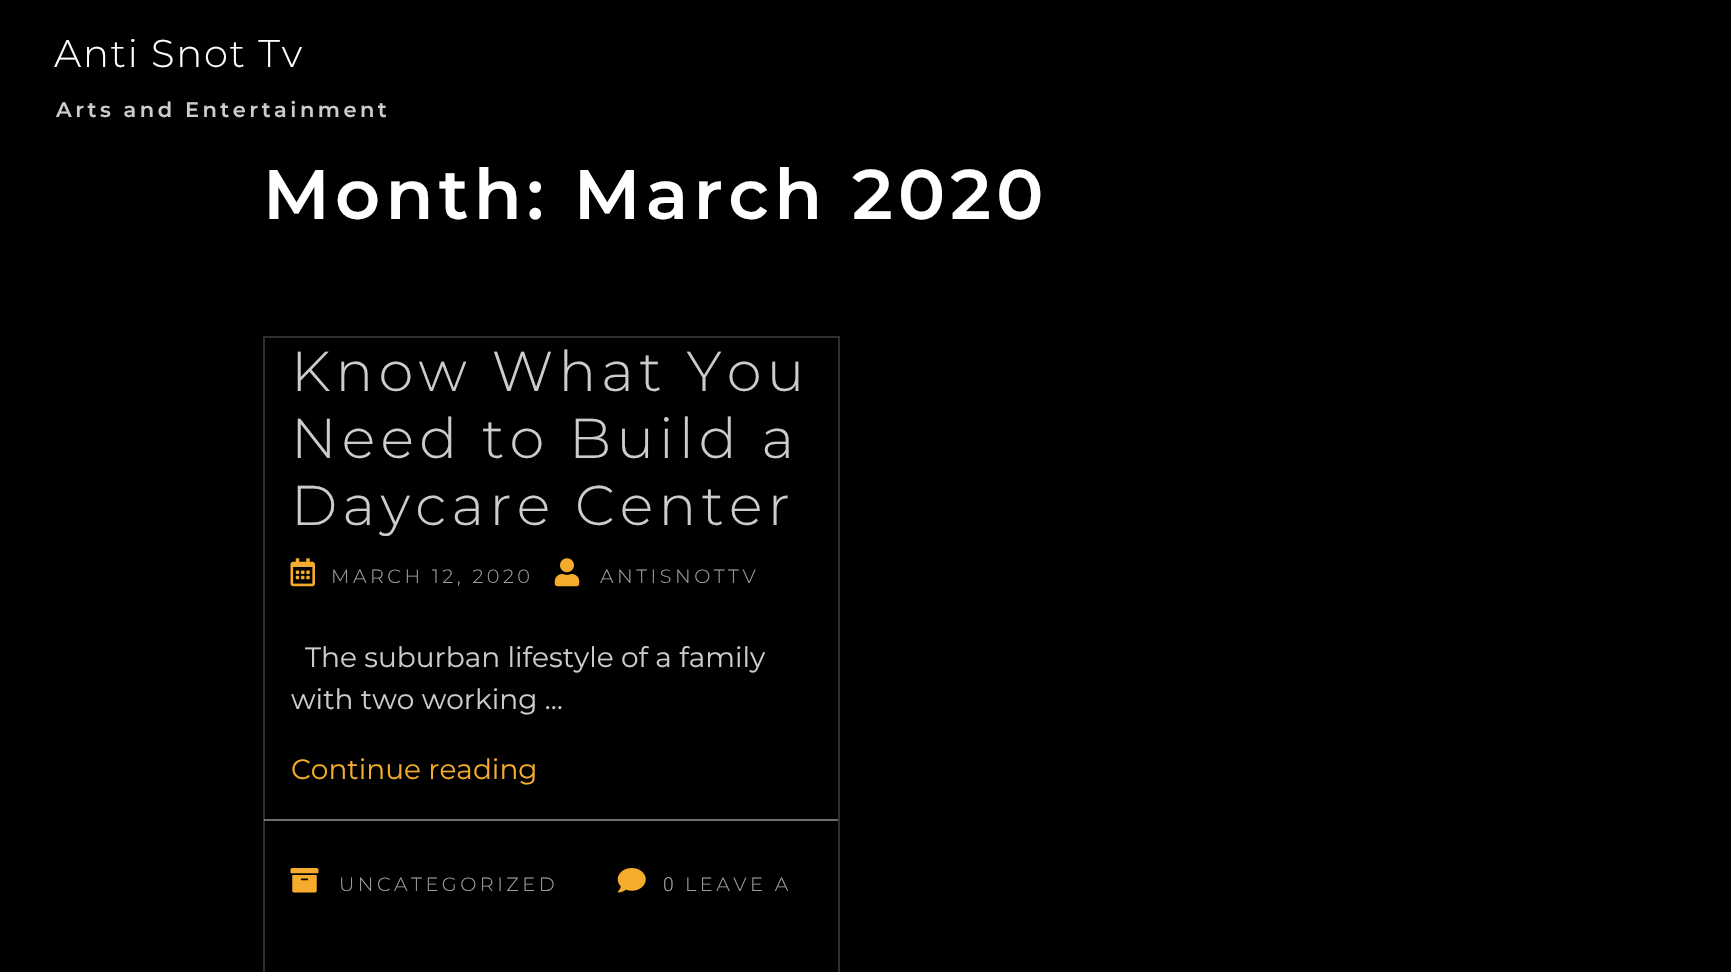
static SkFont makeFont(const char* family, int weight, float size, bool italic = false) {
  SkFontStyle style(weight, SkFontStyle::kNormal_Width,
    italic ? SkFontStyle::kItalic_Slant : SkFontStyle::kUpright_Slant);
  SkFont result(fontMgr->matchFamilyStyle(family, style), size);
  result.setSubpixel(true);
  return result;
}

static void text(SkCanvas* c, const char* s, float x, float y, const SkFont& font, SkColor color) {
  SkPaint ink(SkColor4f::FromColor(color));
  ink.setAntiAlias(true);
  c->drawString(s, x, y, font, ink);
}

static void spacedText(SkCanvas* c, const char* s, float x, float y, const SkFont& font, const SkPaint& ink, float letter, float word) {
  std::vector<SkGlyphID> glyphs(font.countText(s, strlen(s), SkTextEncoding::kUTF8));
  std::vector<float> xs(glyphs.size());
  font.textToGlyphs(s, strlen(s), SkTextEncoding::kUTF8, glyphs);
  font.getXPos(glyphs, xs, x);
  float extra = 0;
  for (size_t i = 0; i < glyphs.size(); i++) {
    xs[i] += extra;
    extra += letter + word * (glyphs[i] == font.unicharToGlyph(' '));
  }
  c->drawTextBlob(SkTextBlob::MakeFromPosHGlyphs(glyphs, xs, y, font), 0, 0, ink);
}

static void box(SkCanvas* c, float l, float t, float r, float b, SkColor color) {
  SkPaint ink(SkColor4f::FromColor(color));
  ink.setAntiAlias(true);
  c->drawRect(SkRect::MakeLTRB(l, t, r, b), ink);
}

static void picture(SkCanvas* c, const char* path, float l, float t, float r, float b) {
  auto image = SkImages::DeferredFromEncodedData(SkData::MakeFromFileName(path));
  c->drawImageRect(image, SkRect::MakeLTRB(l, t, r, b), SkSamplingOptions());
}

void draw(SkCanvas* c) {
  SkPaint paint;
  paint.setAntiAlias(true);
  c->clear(0xff000000);
  SkFont face1 = makeFont("Montserrat", 300, 38.5f);
  paint.setColor(0xffffffff);
  spacedText(c, "Anti Snot Tv", 54, 67, face1, paint, 1.75f, 0);
  SkFont face2 = makeFont("Montserrat", 600, 21);
  paint.setColor(0xffcccccc);
  spacedText(c, "Arts and Entertainment", 56, 117, face2, paint, 3.5f, 0);
  SkFont face3 = makeFont("Montserrat", 600, 70);
  paint.setColor(0xffffffff);
  spacedText(c, "Month: March 2020", 263, 219, face3, paint, 5.25f, 0);
  paint.setStyle(SkPaint::kStroke_Style);
  paint.setStrokeWidth(2);
  paint.setColor(0xff2f2f2f);
  c->drawRect(SkRect::MakeLTRB(264, 337, 839, 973), paint);
  SkFont face4 = makeFont("Montserrat", 300, 56);
  paint.setStyle(SkPaint::kFill_Style);
  paint.setColor(0xffcccccc);
  spacedText(c, "Know What You", 291, 391, face4, paint, 5.25f, 0);
  spacedText(c, "Need to Build a", 291, 458, face4, paint, 5.25f, 0);
  spacedText(c, "Daycare Center", 291, 525, face4, paint, 5.25f, 0);
  picture(c, "img_01.png", 290, 558, 315, 587);
  SkFont face5 = makeFont("Montserrat", 300, 19.25f);
  paint.setColor(0xff9f9f9f);
  spacedText(c, "MARCH 12, 2020", 331, 583, face5, paint, 3.5f, 0);
  picture(c, "img_02.png", 554, 558, 580, 587);
  spacedText(c, "ANTISNOTTV", 600, 583, face5, paint, 3.5f, 0);
  SkFont face6 = makeFont("Montserrat", 400, 28);
  text(c, "The suburban lifestyle of a family", 305, 667, face6, 0xffcccccc);
  text(c, "with two working …", 291, 709, face6, 0xffcccccc);
  text(c, "Continue reading", 291, 779, face6, 0xfff5ab2b);
  box(c, 264, 819, 838, 821, 0x8acccccc);
  picture(c, "img_03.png", 290, 868, 319, 893);
  spacedText(c, "UNCATEGORIZED", 339, 891, face5, paint, 3.5f, 0);
  picture(c, "img_04.png", 617, 868, 646, 893);
  SkFont face7 = makeFont("Roboto", 300, 19.25f);
  spacedText(c, "0", 663, 891, face7, paint, 3.5f, 0);
  spacedText(c, "LEAVE A", 685, 891, face5, paint, 3.5f, 0);
}
